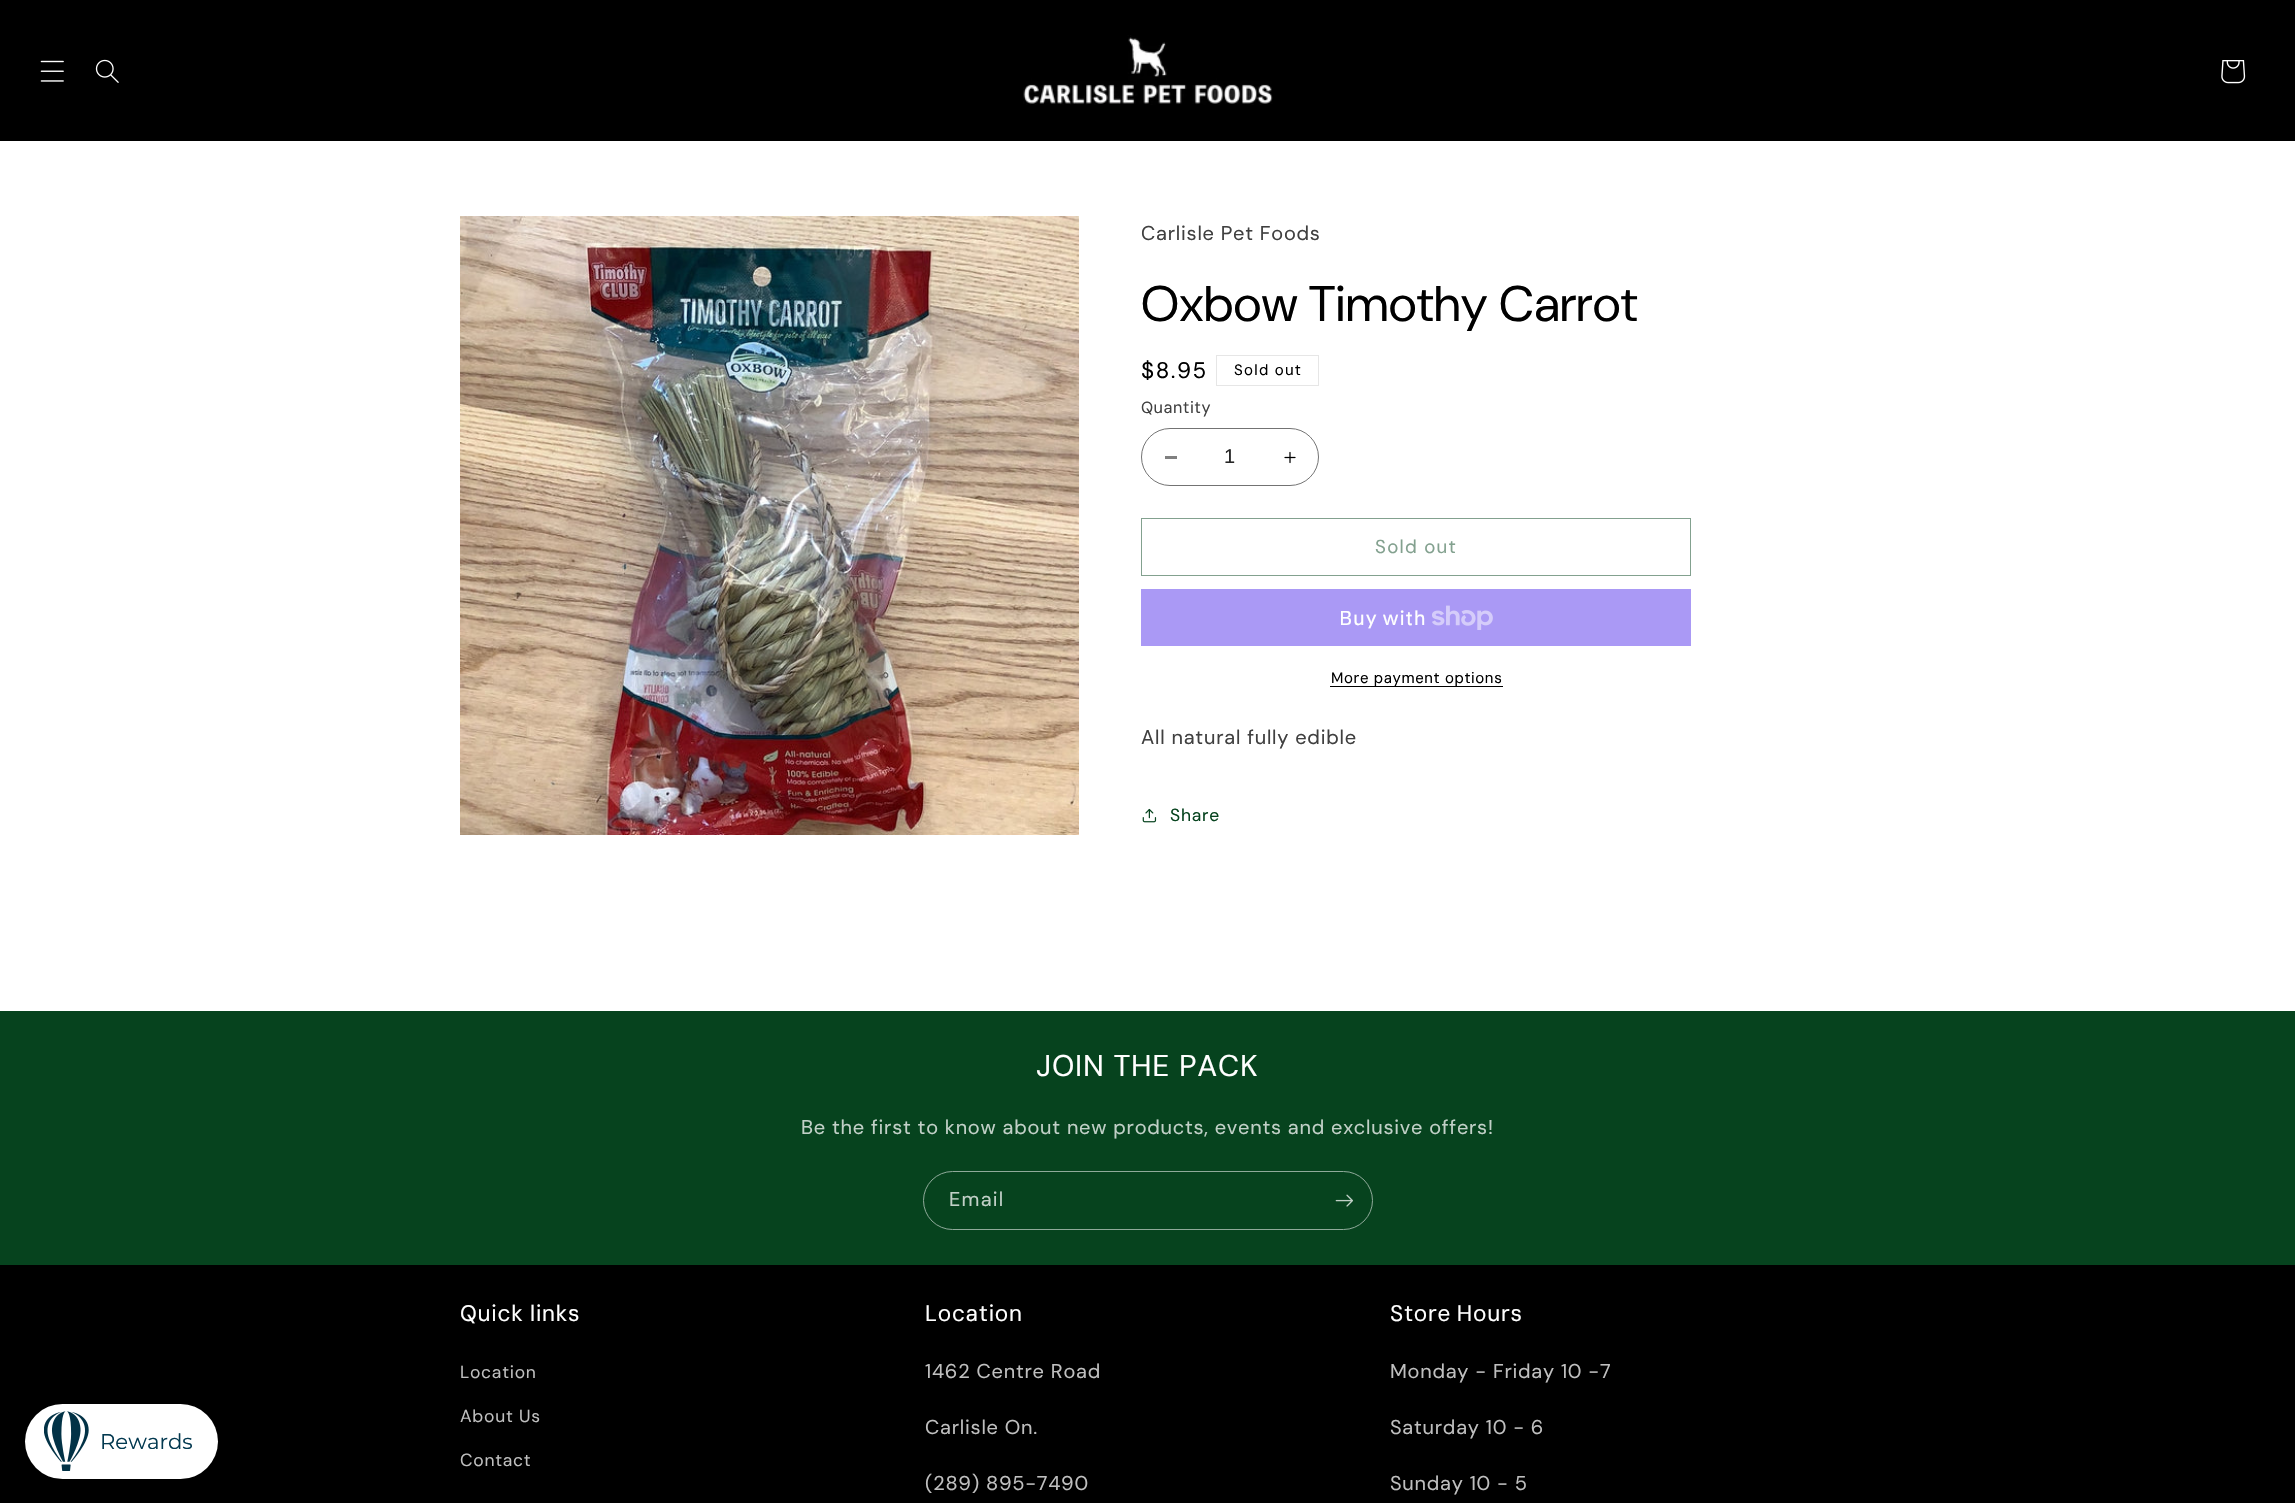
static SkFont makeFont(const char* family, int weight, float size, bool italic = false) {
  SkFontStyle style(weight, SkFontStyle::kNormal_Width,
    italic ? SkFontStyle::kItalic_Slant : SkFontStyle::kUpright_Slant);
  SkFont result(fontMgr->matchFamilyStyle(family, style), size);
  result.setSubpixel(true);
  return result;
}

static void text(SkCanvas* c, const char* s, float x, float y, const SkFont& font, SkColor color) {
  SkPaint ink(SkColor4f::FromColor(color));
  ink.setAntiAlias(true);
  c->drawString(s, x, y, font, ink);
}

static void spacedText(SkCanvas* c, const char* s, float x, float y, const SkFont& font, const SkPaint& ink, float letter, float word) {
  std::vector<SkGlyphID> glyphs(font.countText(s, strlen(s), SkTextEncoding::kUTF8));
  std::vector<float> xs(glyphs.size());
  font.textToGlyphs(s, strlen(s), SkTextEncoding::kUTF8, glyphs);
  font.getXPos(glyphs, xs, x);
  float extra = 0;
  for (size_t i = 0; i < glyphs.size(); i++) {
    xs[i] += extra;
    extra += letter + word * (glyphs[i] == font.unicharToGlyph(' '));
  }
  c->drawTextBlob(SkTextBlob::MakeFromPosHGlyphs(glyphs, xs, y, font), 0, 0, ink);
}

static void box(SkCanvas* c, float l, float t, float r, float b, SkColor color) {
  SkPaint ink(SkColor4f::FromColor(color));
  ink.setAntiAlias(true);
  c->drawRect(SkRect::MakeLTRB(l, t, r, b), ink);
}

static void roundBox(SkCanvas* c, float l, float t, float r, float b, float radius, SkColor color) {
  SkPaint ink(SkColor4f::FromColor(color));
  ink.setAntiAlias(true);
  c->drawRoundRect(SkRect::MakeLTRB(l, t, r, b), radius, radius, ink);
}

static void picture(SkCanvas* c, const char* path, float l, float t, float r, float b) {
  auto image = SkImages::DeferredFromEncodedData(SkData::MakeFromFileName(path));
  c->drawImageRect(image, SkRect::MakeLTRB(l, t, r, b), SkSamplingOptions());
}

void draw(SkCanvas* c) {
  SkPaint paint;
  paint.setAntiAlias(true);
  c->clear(0xffffffff);
  box(c, 0, 0, 2295, 141, 0xff000000);
  picture(c, "img_01.png", 40, 60, 64, 82);
  picture(c, "img_02.png", 95, 59, 119, 83);
  picture(c, "img_03.png", 1023, 35, 1273, 105);
  picture(c, "img_04.png", 2221, 60, 2246, 84);
  picture(c, "img_05.png", 460, 216, 1079, 835);
  SkFont face1 = makeFont("DM Sans", 400, 20);
  paint.setColor(0xff404040);
  spacedText(c, "Carlisle Pet Foods", 1141, 240, face1, paint, 0.75f, 0);
  SkFont face2 = makeFont("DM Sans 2", 400, 50);
  paint.setColor(0xff000000);
  spacedText(c, "Oxbow Timothy Carrot", 1141, 321, face2, paint, 0.75f, 0);
  SkFont face3 = makeFont("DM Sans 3", 400, 22.5f);
  spacedText(c, "$8.95", 1141, 378, face3, paint, 1.5f, 0);
  paint.setStyle(SkPaint::kStroke_Style);
  paint.setStrokeWidth(1);
  paint.setColor(0xffe6e6e6);
  c->drawRect(SkRect::MakeLTRB(1216.5f, 355.5f, 1318.5f, 385.5f), paint);
  SkFont face4 = makeFont("DM Sans 3", 400, 15);
  paint.setStyle(SkPaint::kFill_Style);
  paint.setColor(0xff000000);
  spacedText(c, "Sold out", 1234, 375, face4, paint, 1.25f, 0);
  SkFont face5 = makeFont("DM Sans 3", 400, 16.25f);
  paint.setColor(0xff404040);
  spacedText(c, "Quantity", 1141, 413, face5, paint, 0.5f, 0);
  box(c, 1165, 456, 1177, 459, 0xff808080);
  picture(c, "img_06.png", 1284, 451, 1296, 464);
  paint.setStyle(SkPaint::kStroke_Style);
  paint.setColor(0xff737373);
  c->drawRoundRect(SkRect::MakeLTRB(1141.5f, 428.5f, 1318.5f, 485.5f), 28.5f, 28.5f, paint);
  SkFont face6 = makeFont("Liberation Sans", 400, 20);
  text(c, "1", 1224, 463, face6, 0xff262626);
  paint.setColor(0xff83a18f);
  c->drawRect(SkRect::MakeLTRB(1141.5f, 518.5f, 1690.5f, 575.5f), paint);
  SkFont face7 = makeFont("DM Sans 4", 400, 18.75f);
  paint.setStyle(SkPaint::kFill_Style);
  spacedText(c, "Sold out", 1375, 553, face7, paint, 1.25f, 0);
  box(c, 1141, 589, 1691, 646, 0xffaa99f5);
  SkFont face8 = makeFont("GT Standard", 400, 20);
  paint.setColor(0xffffffff);
  spacedText(c, "Buy with", 1339, 625, face8, paint, 0.75f, 0);
  picture(c, "img_07.png", 1432, 605, 1493, 630);
  box(c, 1330, 686, 1503, 687, 0xff000000);
  paint.setColor(0xff000000);
  spacedText(c, "More payment options", 1331, 683, face4, paint, 0.6f, 0);
  paint.setColor(0xff404040);
  spacedText(c, "All natural fully edible", 1141, 744, face1, paint, 0.75f, 0);
  picture(c, "img_08.png", 1142, 808, 1157, 823);
  SkFont face9 = makeFont("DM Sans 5", 400, 17.5f);
  paint.setColor(0xff06431e);
  spacedText(c, "Share", 1170, 821, face9, paint, 0.75f, 0);
  box(c, 0, 1011, 2295, 1265, 0xff06431e);
  SkFont face10 = makeFont("DM Sans 3", 400, 30);
  paint.setColor(0xffffffff);
  spacedText(c, "JOIN THE PACK", 1036, 1076, face10, paint, 0.75f, 0);
  paint.setColor(0xffc1d0c7);
  spacedText(c, "Be the first to know about new products, events and exclusive offers!", 801, 1134, face1, paint, 0.75f, 0);
  paint.setStyle(SkPaint::kStroke_Style);
  paint.setColor(0xff8faa9a);
  c->drawRoundRect(SkRect::MakeLTRB(923.5f, 1171.5f, 1372.5f, 1229.5f), 29, 29, paint);
  paint.setStyle(SkPaint::kFill_Style);
  paint.setColor(0xffc1d0c7);
  spacedText(c, "Email", 949, 1206, face1, paint, 1.25f, 0);
  picture(c, "img_09.png", 1335, 1194, 1353, 1207);
  box(c, 0, 1265, 2295, 1503, 0xff000000);
  roundBox(c, 25, 1404, 218, 1479, 37.5f, 0xffffffff);
  picture(c, "img_10.png", 44, 1411, 89, 1471);
  SkFont face11 = makeFont("Montserrat", 400, 21.25f);
  text(c, "Rewards", 100, 1449, face11, 0xff033950);
  paint.setColor(0xffffffff);
  spacedText(c, "Quick links", 460, 1321, face3, paint, 0.75f, 0);
  paint.setColor(0xffbfbfbf);
  spacedText(c, "Location", 460, 1378, face9, paint, 0.75f, 0);
  spacedText(c, "About Us", 460, 1422, face9, paint, 0.75f, 0);
  spacedText(c, "Contact", 460, 1466, face9, paint, 0.75f, 0);
  paint.setColor(0xffffffff);
  spacedText(c, "Location", 925, 1321, face3, paint, 0.75f, 0);
  paint.setColor(0xffbfbfbf);
  spacedText(c, "1462 Centre Road", 925, 1378, face1, paint, 0.75f, 0);
  spacedText(c, "Carlisle On.", 925, 1434, face1, paint, 0.75f, 0);
  spacedText(c, "(289) 895-7490", 925, 1490, face1, paint, 0.75f, 0);
  paint.setColor(0xffffffff);
  spacedText(c, "Store Hours", 1390, 1321, face3, paint, 0.75f, -1);
  paint.setColor(0xffbfbfbf);
  spacedText(c, "Monday - Friday 10 -7", 1390, 1378, face1, paint, 0.75f, 0);
  spacedText(c, "Saturday 10 - 6", 1390, 1434, face1, paint, 0.75f, 0);
  spacedText(c, "Sunday 10 - 5", 1390, 1490, face1, paint, 0.75f, 0);
}
